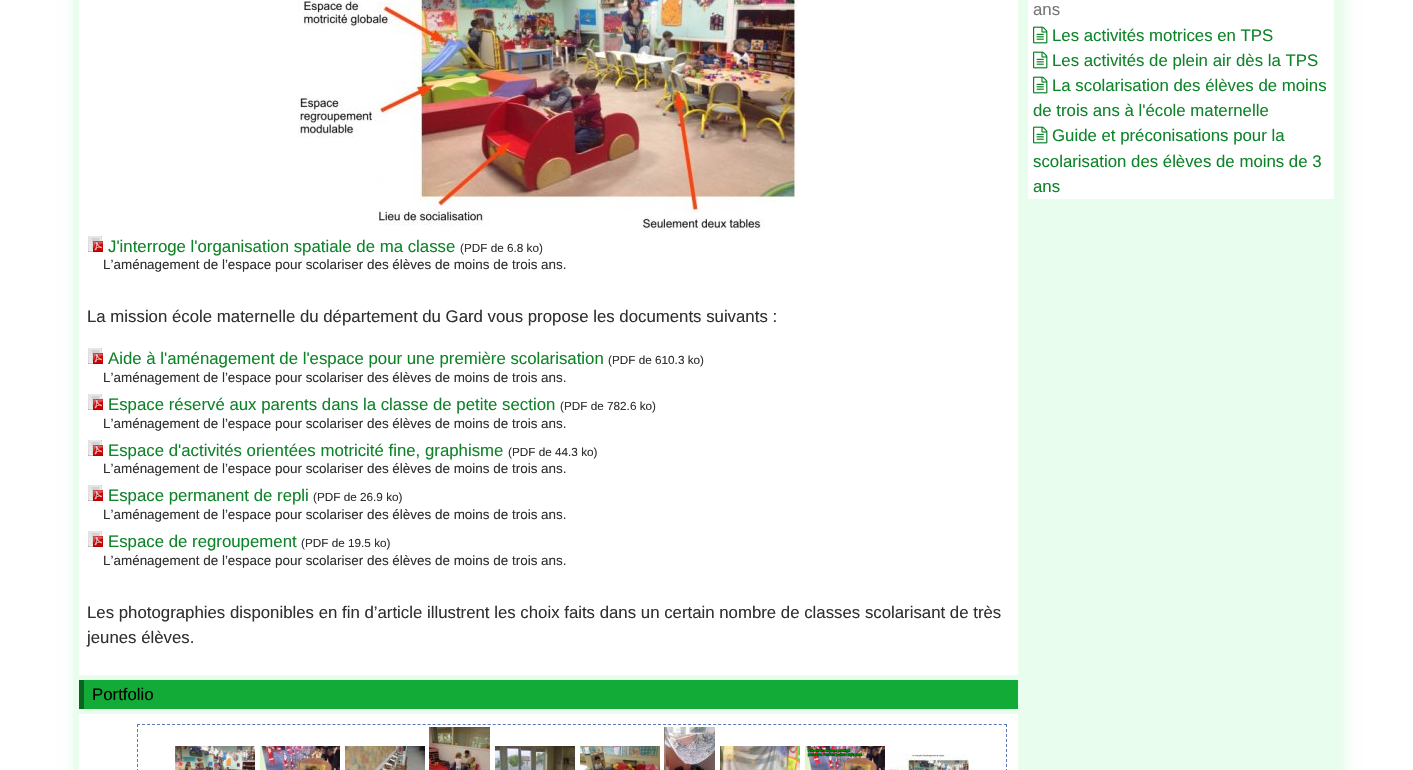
static SkFont makeFont(const char* family, int weight, float size, bool italic = false) {
  SkFontStyle style(weight, SkFontStyle::kNormal_Width,
    italic ? SkFontStyle::kItalic_Slant : SkFontStyle::kUpright_Slant);
  SkFont result(fontMgr->matchFamilyStyle(family, style), size);
  result.setSubpixel(true);
  return result;
}

static void text(SkCanvas* c, const char* s, float x, float y, const SkFont& font, SkColor color) {
  SkPaint ink(SkColor4f::FromColor(color));
  ink.setAntiAlias(true);
  c->drawString(s, x, y, font, ink);
}

static void box(SkCanvas* c, float l, float t, float r, float b, SkColor color) {
  SkPaint ink(SkColor4f::FromColor(color));
  ink.setAntiAlias(true);
  c->drawRect(SkRect::MakeLTRB(l, t, r, b), ink);
}

static void picture(SkCanvas* c, const char* path, float l, float t, float r, float b) {
  auto image = SkImages::DeferredFromEncodedData(SkData::MakeFromFileName(path));
  c->drawImageRect(image, SkRect::MakeLTRB(l, t, r, b), SkSamplingOptions());
}

void draw(SkCanvas* c) {
  SkPaint paint;
  paint.setAntiAlias(true);
  c->clear(0xffffffff);
  paint.setColor(0xffe8fded);
  paint.setMaskFilter(SkMaskFilter::MakeBlur(kNormal_SkBlurStyle, 5));
  c->drawRect(SkRect::MakeLTRB(72, -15, 1347, 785), paint);
  paint.setMaskFilter(nullptr);
  box(c, 74, 0, 78, 770, 0xffe8fded);
  box(c, 1028, 0, 1334, 199, 0xffffffff);
  SkFont face1 = makeFont("Liberation Sans", 400, 16.8f);
  text(c, "ans", 1033, 15, face1, 0xff767676);
  picture(c, "img_01.png", 1033, 26, 1048, 44);
  text(c, "Les activités motrices en TPS", 1052, 41, face1, 0xff0e8429);
  picture(c, "img_01.png", 1033, 51, 1048, 69);
  text(c, "Les activités de plein air dès la TPS", 1052, 66, face1, 0xff0e8429);
  picture(c, "img_01.png", 1033, 76, 1048, 94);
  text(c, "La scolarisation des élèves de moins", 1052, 91, face1, 0xff0e8429);
  text(c, "de trois ans à l'école maternelle", 1033, 116, face1, 0xff0e8429);
  picture(c, "img_01.png", 1033, 126, 1048, 144);
  text(c, "Guide et préconisations pour la", 1052, 141, face1, 0xff0e8429);
  text(c, "scolarisation des élèves de moins de 3", 1033, 167, face1, 0xff0e8429);
  text(c, "ans", 1033, 192, face1, 0xff0e8429);
  box(c, 79, 0, 1018, 675, 0xffffffff);
  picture(c, "img_02.png", 298, 0, 798, 230);
  picture(c, "img_03.png", 88, 236, 103, 252);
  text(c, "J'interroge l'organisation spatiale de ma classe", 108, 252, face1, 0xff0e8429);
  SkFont face2 = makeFont("Liberation Sans", 400, 11.75f);
  text(c, "(PDF de 6.8 ko)", 460, 252, face2, 0xff303030);
  SkFont face3 = makeFont("Liberation Sans", 400, 13.45f);
  text(c, "L’aménagement de l’espace pour scolariser des élèves de moins de trois ans.", 103, 269, face3, 0xff303030);
  text(c, "La mission école maternelle du département du Gard vous propose les documents suivants :", 87, 322, face1, 0xff303030);
  picture(c, "img_03.png", 88, 348, 103, 364);
  text(c, "Aide à l'aménagement de l'espace pour une première scolarisation", 108, 364, face1, 0xff0e8429);
  text(c, "(PDF de 610.3 ko)", 608, 364, face2, 0xff303030);
  text(c, "L’aménagement de l’espace pour scolariser des élèves de moins de trois ans.", 103, 382, face3, 0xff303030);
  picture(c, "img_03.png", 88, 394, 103, 410);
  text(c, "Espace réservé aux parents dans la classe de petite section", 108, 410, face1, 0xff0e8429);
  text(c, "(PDF de 782.6 ko)", 560, 410, face2, 0xff303030);
  text(c, "L’aménagement de l’espace pour scolariser des élèves de moins de trois ans.", 103, 428, face3, 0xff303030);
  picture(c, "img_03.png", 88, 440, 103, 456);
  text(c, "Espace d'activités orientées motricité fine, graphisme", 108, 456, face1, 0xff0e8429);
  text(c, "(PDF de 44.3 ko)", 508, 456, face2, 0xff303030);
  text(c, "L’aménagement de l’espace pour scolariser des élèves de moins de trois ans.", 103, 473, face3, 0xff303030);
  picture(c, "img_03.png", 88, 485, 103, 501);
  text(c, "Espace permanent de repli", 108, 501, face1, 0xff0e8429);
  text(c, "(PDF de 26.9 ko)", 313, 501, face2, 0xff303030);
  text(c, "L’aménagement de l’espace pour scolariser des élèves de moins de trois ans.", 103, 519, face3, 0xff303030);
  picture(c, "img_03.png", 88, 531, 103, 547);
  text(c, "Espace de regroupement", 108, 547, face1, 0xff0e8429);
  text(c, "(PDF de 19.5 ko)", 301, 547, face2, 0xff303030);
  text(c, "L’aménagement de l’espace pour scolariser des élèves de moins de trois ans.", 103, 565, face3, 0xff303030);
  text(c, "Les photographies disponibles en fin d’article illustrent les choix faits dans un certain nombre de classes scolarisant de très", 87, 618, face1, 0xff303030);
  text(c, "jeunes élèves.", 87, 643, face1, 0xff303030);
  box(c, 84, 680, 1018, 709, 0xff12ab37);
  box(c, 79, 680, 84, 709, 0xff0a631f);
  text(c, "Portfolio", 92, 700, face1, 0xff000000);
  box(c, 79, 714, 1018, 770, 0xffffffff);
  paint.setStyle(SkPaint::kStroke_Style);
  paint.setStrokeWidth(1);
  paint.setColor(0xff5c77b5);
  paint.setPathEffect(SkDashPathEffect::Make({{3, 2.01f}}, 0));
  c->drawPath(SkPathBuilder().moveTo(137, 724.5f).lineTo(1007, 724.5f).detach(), paint);
  paint.setPathEffect(nullptr);
  paint.setPathEffect(SkDashPathEffect::Make({{3, 2}}, 0));
  c->drawPath(SkPathBuilder().moveTo(1006.5f, 724).lineTo(1006.5f, 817).detach(), paint);
  paint.setPathEffect(nullptr);
  paint.setPathEffect(SkDashPathEffect::Make({{3, 2}}, 0));
  c->drawPath(SkPathBuilder().moveTo(137.5f, 724).lineTo(137.5f, 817).detach(), paint);
  paint.setPathEffect(nullptr);
  picture(c, "img_04.png", 175, 746, 255, 770);
  picture(c, "img_05.png", 260, 746, 340, 770);
  picture(c, "img_06.png", 345, 746, 425, 770);
  picture(c, "img_07.png", 429, 727, 490, 770);
  picture(c, "img_08.png", 495, 746, 575, 770);
  picture(c, "img_09.png", 580, 746, 660, 770);
  picture(c, "img_10.png", 664, 727, 715, 770);
  picture(c, "img_11.png", 720, 746, 800, 770);
  picture(c, "img_12.png", 805, 746, 885, 770);
  picture(c, "img_13.png", 889, 754, 969, 770);
}
